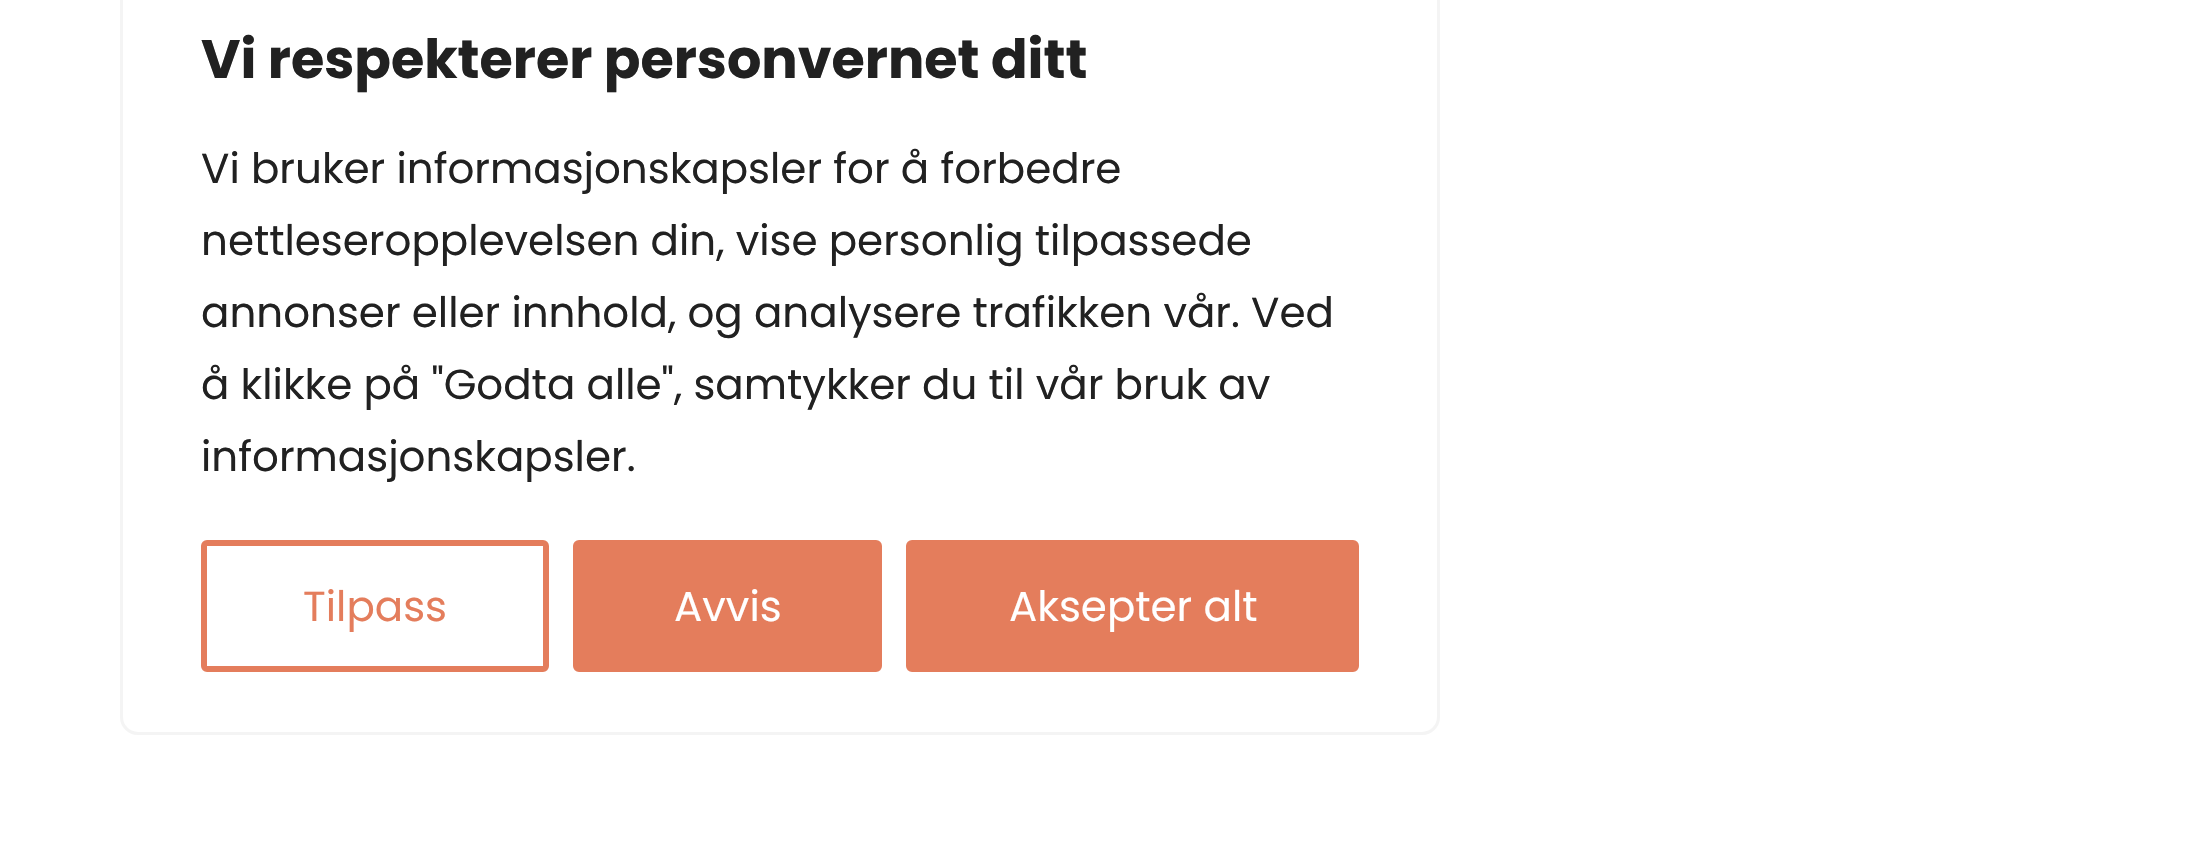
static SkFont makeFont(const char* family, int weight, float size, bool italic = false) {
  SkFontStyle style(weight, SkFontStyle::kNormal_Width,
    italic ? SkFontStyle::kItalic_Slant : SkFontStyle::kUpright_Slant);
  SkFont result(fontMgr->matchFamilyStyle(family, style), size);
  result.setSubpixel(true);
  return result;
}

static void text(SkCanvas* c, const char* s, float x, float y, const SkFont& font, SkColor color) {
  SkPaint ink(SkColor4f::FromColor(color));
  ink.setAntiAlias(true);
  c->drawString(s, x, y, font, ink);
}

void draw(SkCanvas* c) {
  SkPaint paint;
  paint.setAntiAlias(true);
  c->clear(0xffffffff);
  paint.setStyle(SkPaint::kStroke_Style);
  paint.setStrokeWidth(3);
  paint.setColor(0xfff4f4f4);
  c->drawRoundRect(SkRect::MakeLTRB(121.5f, -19.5f, 1438.5f, 733.5f), 16.5f, 16.5f, paint);
  SkFont face1 = makeFont("Poppins", 700, 54);
  text(c, "Vi respekterer personvernet ditt", 201, 78, face1, 0xff212121);
  SkFont face2 = makeFont("Poppins", 400, 42);
  text(c, "Vi bruker informasjonskapsler for å forbedre", 201, 183, face2, 0xff212121);
  text(c, "nettleseropplevelsen din, vise personlig tilpassede", 201, 255, face2, 0xff212121);
  text(c, "annonser eller innhold, og analysere trafikken vår. Ved", 201, 327, face2, 0xff212121);
  text(c, "å klikke på \"Godta alle\", samtykker du til vår bruk av", 201, 399, face2, 0xff212121);
  text(c, "informasjonskapsler.", 201, 471, face2, 0xff212121);
  paint.setStrokeWidth(6);
  paint.setColor(0xffe47d5c);
  c->drawRoundRect(SkRect::MakeLTRB(204, 543, 546, 669), 3, 3, paint);
  text(c, "Tilpass", 303, 621, face2, 0xffe47d5c);
  paint.setStyle(SkPaint::kFill_Style);
  c->drawRoundRect(SkRect::MakeLTRB(576, 543, 879, 669), 3, 3, paint);
  paint.setStyle(SkPaint::kStroke_Style);
  c->drawRoundRect(SkRect::MakeLTRB(576, 543, 879, 669), 3, 3, paint);
  text(c, "Avvis", 674, 621, face2, 0xffffffff);
  paint.setStyle(SkPaint::kFill_Style);
  c->drawRoundRect(SkRect::MakeLTRB(909, 543, 1356, 669), 3, 3, paint);
  paint.setStyle(SkPaint::kStroke_Style);
  c->drawRoundRect(SkRect::MakeLTRB(909, 543, 1356, 669), 3, 3, paint);
  text(c, "Aksepter alt", 1009, 621, face2, 0xffffffff);
}
